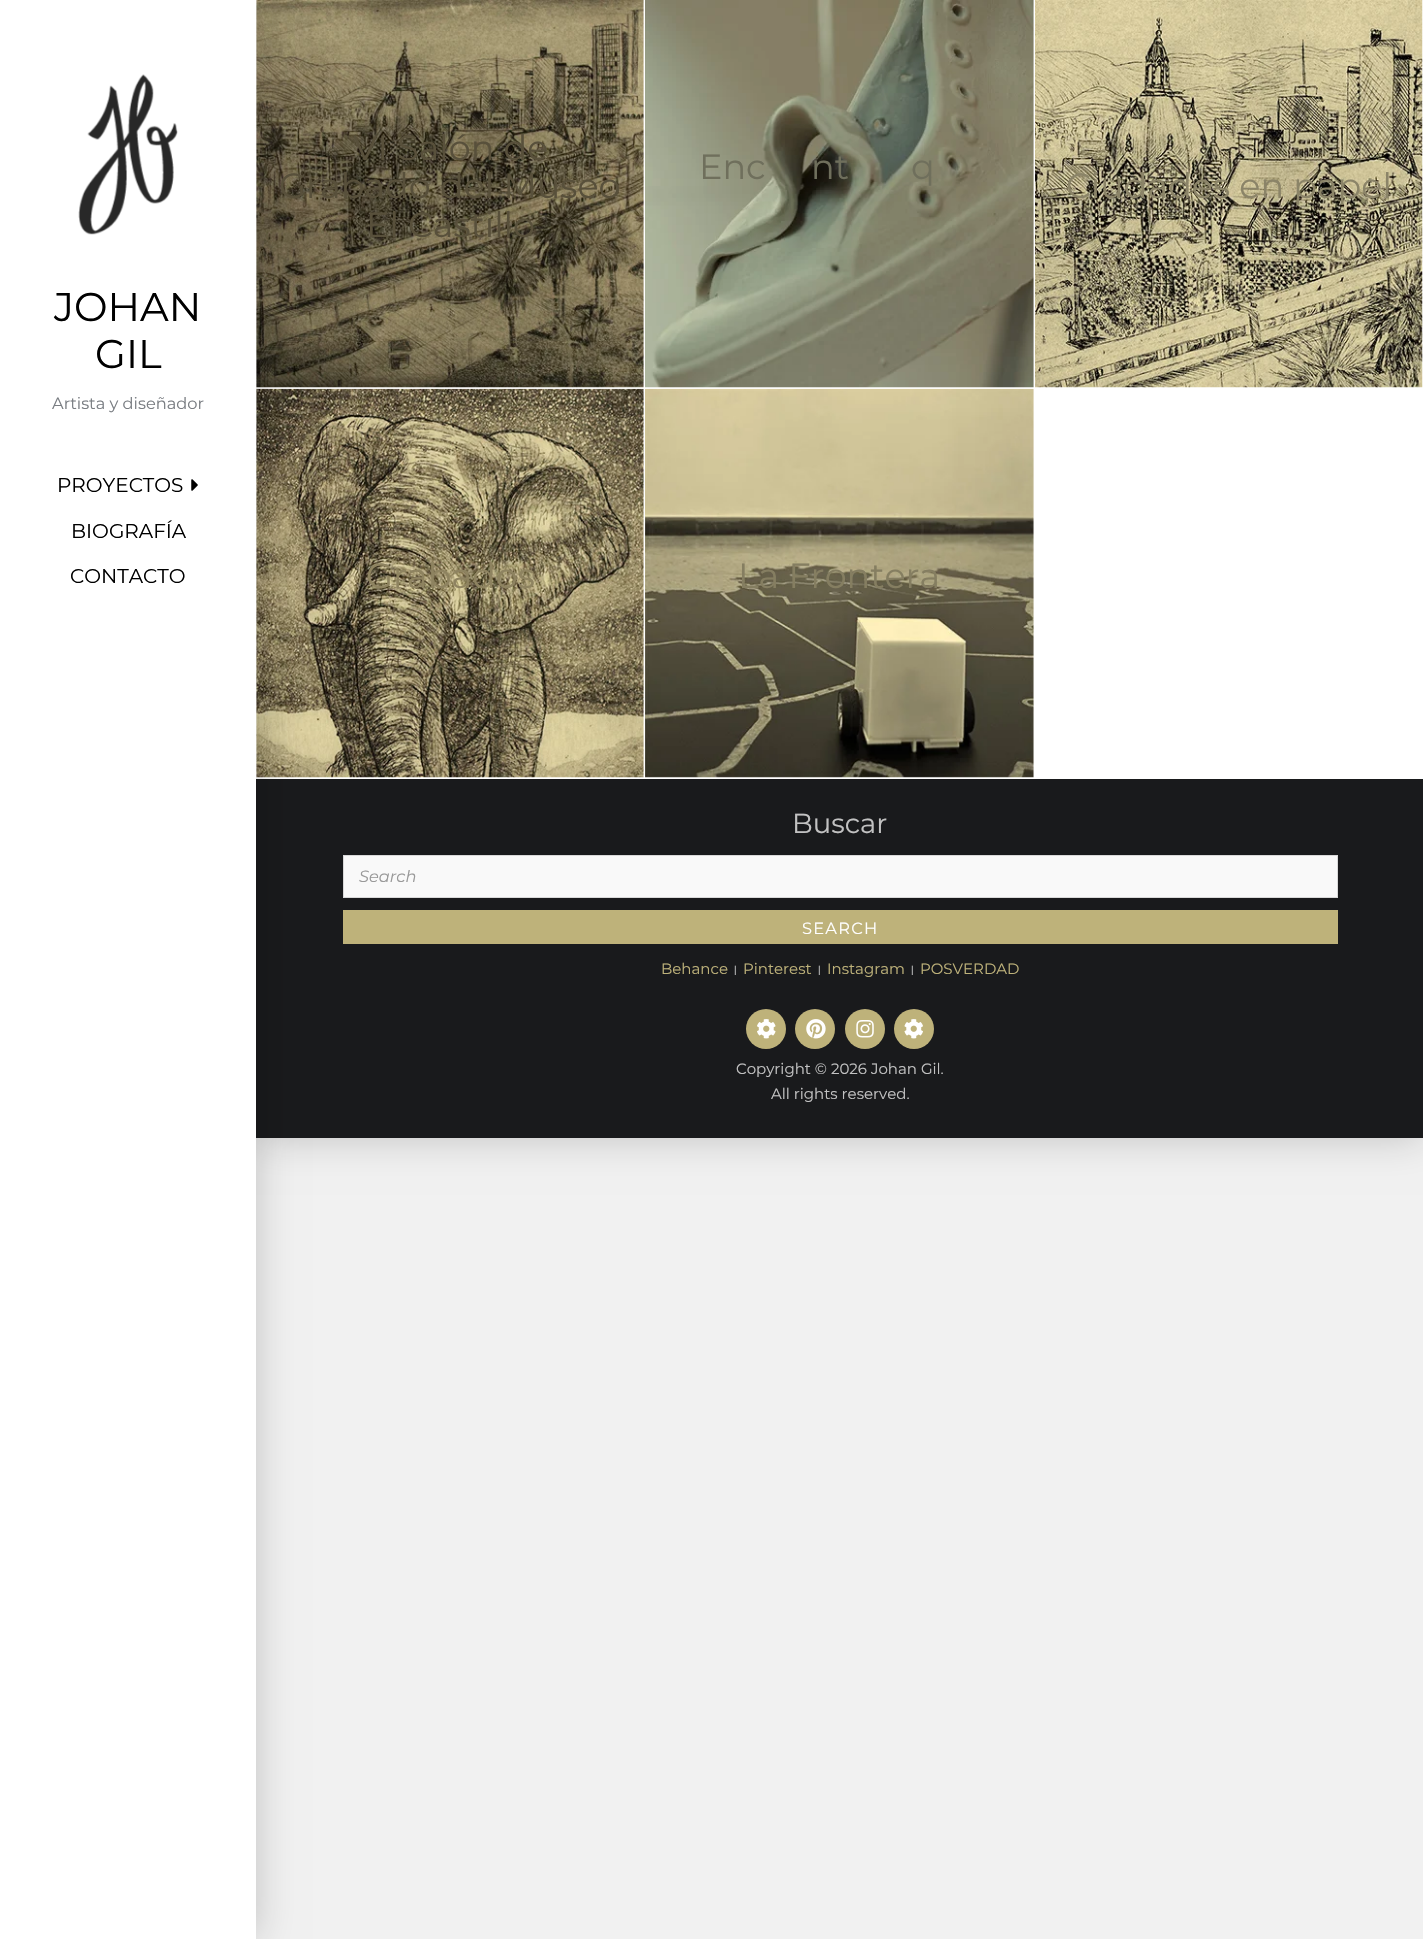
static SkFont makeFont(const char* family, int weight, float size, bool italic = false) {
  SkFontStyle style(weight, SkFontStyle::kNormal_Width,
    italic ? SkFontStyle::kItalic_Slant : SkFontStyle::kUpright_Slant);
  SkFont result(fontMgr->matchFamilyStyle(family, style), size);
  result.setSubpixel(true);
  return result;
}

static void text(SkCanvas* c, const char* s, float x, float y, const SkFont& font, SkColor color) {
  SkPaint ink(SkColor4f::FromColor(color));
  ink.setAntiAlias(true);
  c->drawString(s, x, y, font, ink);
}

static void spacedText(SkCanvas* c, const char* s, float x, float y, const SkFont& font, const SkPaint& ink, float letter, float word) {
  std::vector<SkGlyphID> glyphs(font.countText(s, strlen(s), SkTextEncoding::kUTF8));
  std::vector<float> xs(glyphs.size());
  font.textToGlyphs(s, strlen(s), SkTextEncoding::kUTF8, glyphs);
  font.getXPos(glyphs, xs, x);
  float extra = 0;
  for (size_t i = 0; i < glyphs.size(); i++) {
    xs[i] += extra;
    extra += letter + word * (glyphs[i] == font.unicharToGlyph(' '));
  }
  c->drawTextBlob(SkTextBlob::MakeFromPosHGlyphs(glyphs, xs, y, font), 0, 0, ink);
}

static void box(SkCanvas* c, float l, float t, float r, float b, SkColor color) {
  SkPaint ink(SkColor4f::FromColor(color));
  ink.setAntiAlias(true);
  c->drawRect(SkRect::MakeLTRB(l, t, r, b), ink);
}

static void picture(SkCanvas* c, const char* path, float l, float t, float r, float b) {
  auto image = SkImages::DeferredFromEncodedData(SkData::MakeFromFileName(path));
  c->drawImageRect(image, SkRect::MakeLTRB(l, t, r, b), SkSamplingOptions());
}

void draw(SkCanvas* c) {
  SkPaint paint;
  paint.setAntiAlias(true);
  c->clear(0xfff1f1f1);
  paint.setColor(0x33000000);
  paint.setMaskFilter(SkMaskFilter::MakeBlur(kNormal_SkBlurStyle, 19));
  c->drawRect(SkRect::MakeLTRB(256, 0, 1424, 1138), paint);
  paint.setMaskFilter(nullptr);
  box(c, 256, 0, 1423, 779, 0xffffffff);
  picture(c, "img_03.png", 256, 0, 644, 388);
  picture(c, "img_06.png", 256, 388, 644, 778);
  box(c, 256, 779, 1423, 1138, 0xff191a1c);
  paint.setMaskFilter(SkMaskFilter::MakeBlur(kNormal_SkBlurStyle, 19));
  c->drawRect(SkRect::MakeLTRB(0, 0, 256, 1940), paint);
  paint.setMaskFilter(nullptr);
  box(c, 0, 0, 256, 1939, 0xffffffff);
  picture(c, "img_01.png", 78, 74, 178, 235);
  SkFont face1 = makeFont("Montserrat", 400, 40);
  text(c, "JOHAN", 54, 321, face1, 0xff000000);
  text(c, "GIL", 95, 368, face1, 0xff000000);
  SkFont face2 = makeFont("Montserrat", 400, 16.25f);
  text(c, "Artista y diseñador", 52, 409, face2, 0xff797d82);
  SkFont face3 = makeFont("Montserrat", 400, 20);
  text(c, "PROYECTOS", 57, 492, face3, 0xff000000);
  picture(c, "img_02.png", 191, 479, 198, 491);
  text(c, "BIOGRAFÍA", 71, 538, face3, 0xff000000);
  text(c, "CONTACTO", 70, 583, face3, 0xff000000);
  SkFont face4 = makeFont("Montserrat", 400, 35);
  text(c, "VI Salón de", 353, 160, face4, 0xff58503b);
  text(c, "Grabado del Museo", 279, 198, face4, 0xff58503b);
  text(c, "El Castillo", 366, 237, face4, 0xff58503b);
  picture(c, "img_04.png", 645, 0, 1034, 388);
  text(c, "Enc", 699, 179, face4, 0xff6f6f5c);
  text(c, "nt", 811, 179, face4, 0xff6f6f5c);
  text(c, "q", 911, 179, face4, 0xff6f6f5c);
  picture(c, "img_05.png", 1035, 0, 1423, 388);
  text(c, "Ciudades en papel", 1066, 198, face4, 0xff8b8468);
  text(c, "Grabados", 366, 588, face4, 0xff8e8360);
  picture(c, "img_07.png", 645, 388, 1034, 778);
  text(c, "La Frontera", 738, 588, face4, 0xff857e61);
  SkFont face5 = makeFont("Montserrat", 400, 27.5f);
  text(c, "Buscar", 792, 833, face5, 0xffc2c2c2);
  paint.setColor(0xfff9f9f9);
  c->drawRect(SkRect::MakeLTRB(343.5f, 855.5f, 1337.5f, 897.5f), paint);
  paint.setStyle(SkPaint::kStroke_Style);
  paint.setStrokeWidth(1);
  paint.setColor(0xffd9d9d9);
  c->drawRect(SkRect::MakeLTRB(343.5f, 855.5f, 1337.5f, 897.5f), paint);
  SkFont face6 = makeFont("Montserrat", 400, 16.25f, true);
  text(c, "Search", 359, 882, face6, 0xff999999);
  box(c, 343, 910, 1338, 944, 0xffbeb27a);
  paint.setStyle(SkPaint::kFill_Style);
  paint.setColor(0xffffffff);
  spacedText(c, "SEARCH", 802, 934, face2, paint, 1.25f, 0);
  SkFont face7 = makeFont("Montserrat", 400, 15);
  text(c, "Behance", 661, 974, face7, 0xffbeb27a);
  SkFont face8 = makeFont("Liberation Sans", 400, 10);
  text(c, "|", 734, 973, face8, 0xffc2c2c2);
  text(c, "Pinterest", 743, 974, face7, 0xffbeb27a);
  text(c, "|", 818, 973, face8, 0xffc2c2c2);
  text(c, "Instagram", 827, 974, face7, 0xffbeb27a);
  text(c, "|", 911, 973, face8, 0xffc2c2c2);
  text(c, "POSVERDAD", 920, 974, face7, 0xffbeb27a);
  paint.setColor(0xffbeb27a);
  c->drawCircle(766, 1029, 20, paint);
  picture(c, "img_08.png", 757, 1019, 776, 1039);
  c->drawCircle(815, 1029, 20, paint);
  picture(c, "img_09.png", 806, 1019, 826, 1039);
  c->drawCircle(865, 1029, 20, paint);
  picture(c, "img_10.png", 856, 1020, 874, 1038);
  c->drawCircle(914, 1029, 20, paint);
  picture(c, "img_11.png", 904, 1019, 923, 1039);
  text(c, "Copyright © 2026 Johan Gil.", 736, 1074, face7, 0xffc2c2c2);
  text(c, "All rights reserved.", 771, 1099, face7, 0xffc2c2c2);
}
